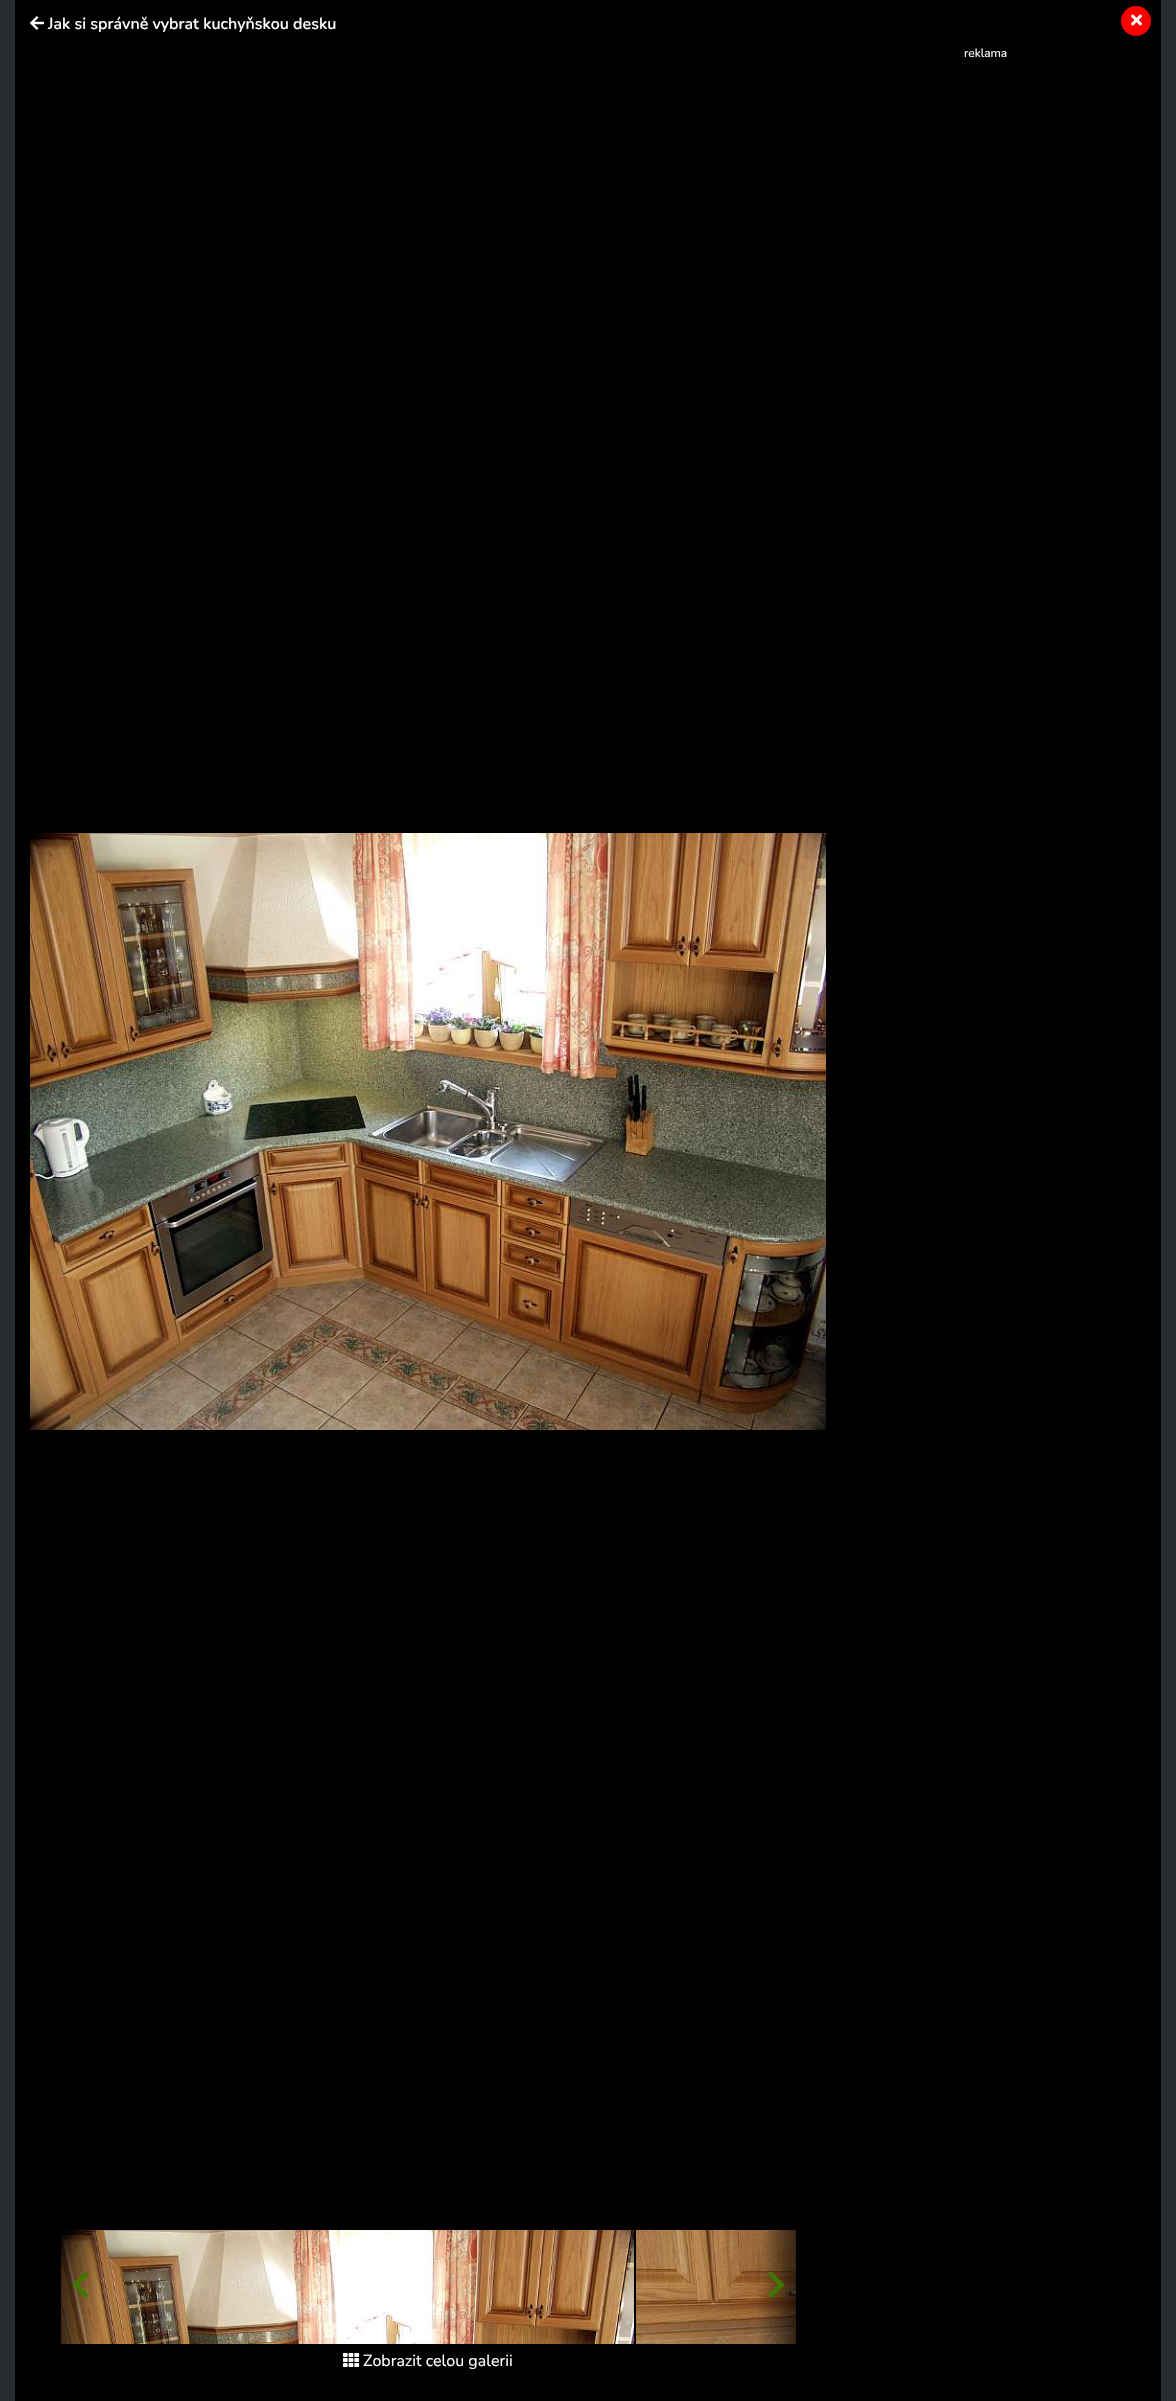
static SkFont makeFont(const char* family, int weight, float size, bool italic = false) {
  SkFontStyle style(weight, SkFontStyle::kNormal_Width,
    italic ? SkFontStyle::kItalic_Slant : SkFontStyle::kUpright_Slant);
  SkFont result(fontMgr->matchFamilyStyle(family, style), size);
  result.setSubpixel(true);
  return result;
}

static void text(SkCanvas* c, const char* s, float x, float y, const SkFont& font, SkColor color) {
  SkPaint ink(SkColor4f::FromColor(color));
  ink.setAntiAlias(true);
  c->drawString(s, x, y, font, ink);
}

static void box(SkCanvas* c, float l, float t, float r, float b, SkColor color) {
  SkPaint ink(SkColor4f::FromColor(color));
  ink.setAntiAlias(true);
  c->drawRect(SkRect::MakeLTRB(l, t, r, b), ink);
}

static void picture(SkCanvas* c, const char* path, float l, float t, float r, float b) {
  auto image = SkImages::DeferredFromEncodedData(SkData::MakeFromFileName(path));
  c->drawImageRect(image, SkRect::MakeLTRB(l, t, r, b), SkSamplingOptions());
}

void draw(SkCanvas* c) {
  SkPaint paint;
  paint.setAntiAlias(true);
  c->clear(0xff282d32);
  box(c, 15, 0, 1161, 2401, 0xff000000);
  picture(c, "img_01.png", 30, 16, 44, 30);
  SkFont face1 = makeFont("Nunito", 600, 16);
  text(c, "Jak si správně vybrat kuchyňskou desku", 48, 29, face1, 0xffffffff);
  paint.setColor(0xffff0000);
  c->drawCircle(1136, 21, 15, paint);
  picture(c, "img_02.png", 1131, 14, 1142, 26);
  SkFont face2 = makeFont("Nunito", 400, 12);
  text(c, "reklama", 964, 57, face2, 0xffffffff);
  picture(c, "img_03.png", 30, 833, 826, 1430);
  picture(c, "img_04.png", 61, 2230, 634, 2344);
  picture(c, "img_05.png", 636, 2230, 796, 2344);
  {
    const SkColor colors[] = {0xa6000000, 0x00000000};
    const float stops[] = {0, 1};
    const SkPoint ends[] = {{60, 2287}, {100, 2287}};
    paint.setShader(SkGradientShader::MakeLinear(ends, colors, stops, 2, SkTileMode::kClamp));
    paint.setAlpha(255);
  }
  c->drawRect(SkRect::MakeLTRB(61, 2230, 99, 2344), paint);
  picture(c, "img_06.png", 72, 2272, 89, 2298);
  picture(c, "img_07.png", 768, 2272, 785, 2298);
  picture(c, "img_08.png", 343, 2353, 359, 2367);
  SkFont face3 = makeFont("Nunito", 400, 16);
  text(c, "Zobrazit celou galerii", 363, 2366, face3, 0xffffffff);
}
